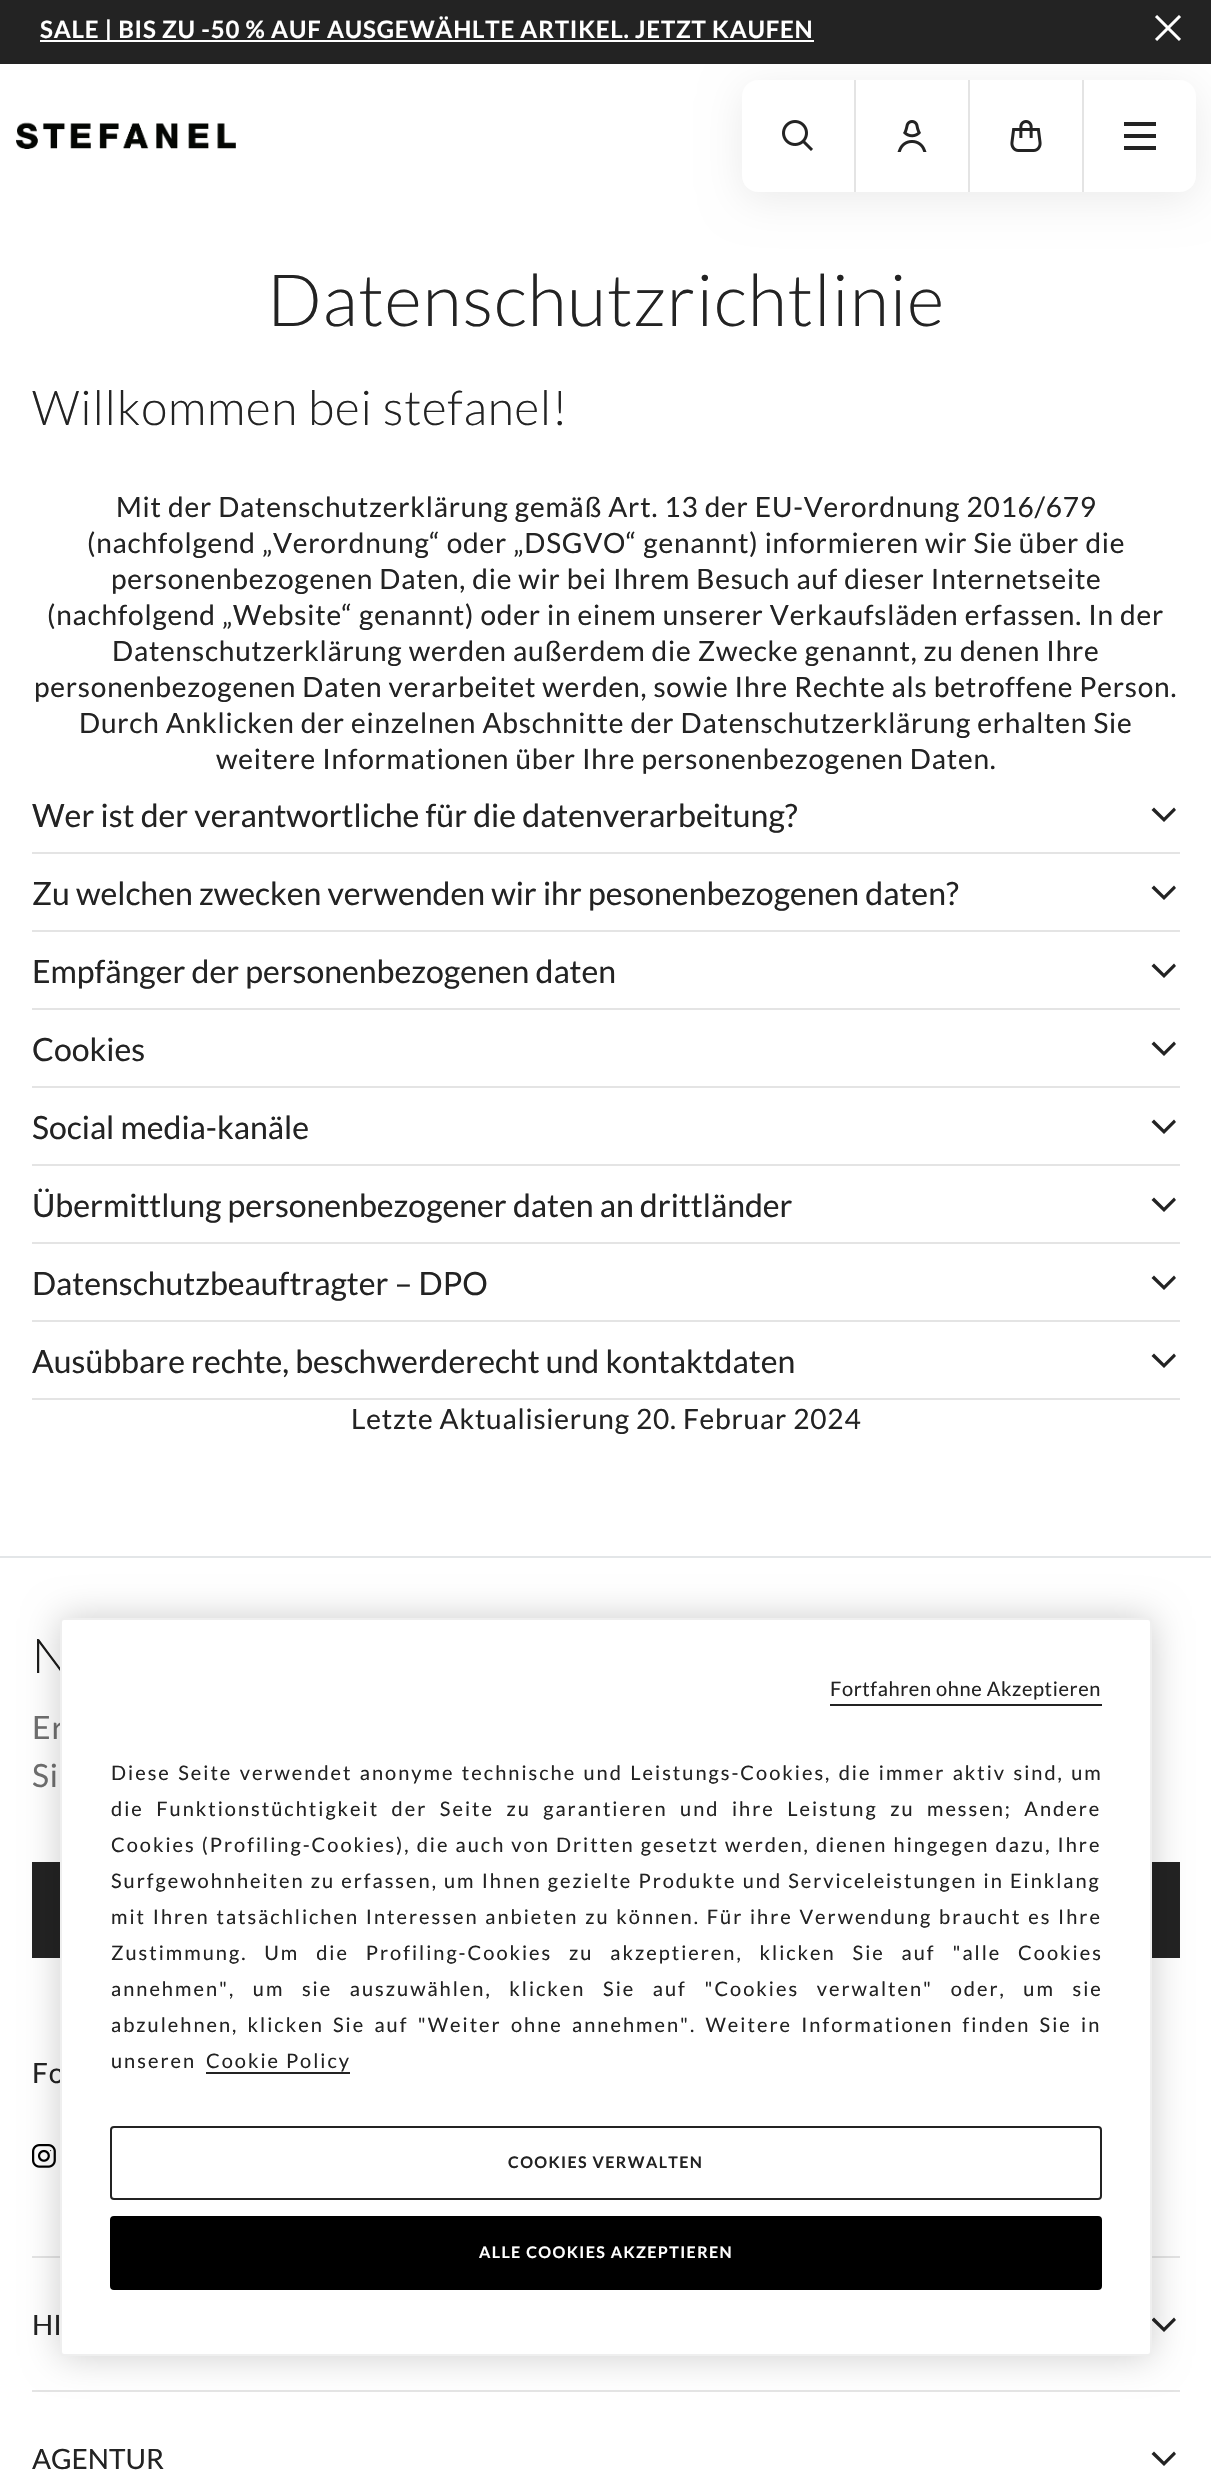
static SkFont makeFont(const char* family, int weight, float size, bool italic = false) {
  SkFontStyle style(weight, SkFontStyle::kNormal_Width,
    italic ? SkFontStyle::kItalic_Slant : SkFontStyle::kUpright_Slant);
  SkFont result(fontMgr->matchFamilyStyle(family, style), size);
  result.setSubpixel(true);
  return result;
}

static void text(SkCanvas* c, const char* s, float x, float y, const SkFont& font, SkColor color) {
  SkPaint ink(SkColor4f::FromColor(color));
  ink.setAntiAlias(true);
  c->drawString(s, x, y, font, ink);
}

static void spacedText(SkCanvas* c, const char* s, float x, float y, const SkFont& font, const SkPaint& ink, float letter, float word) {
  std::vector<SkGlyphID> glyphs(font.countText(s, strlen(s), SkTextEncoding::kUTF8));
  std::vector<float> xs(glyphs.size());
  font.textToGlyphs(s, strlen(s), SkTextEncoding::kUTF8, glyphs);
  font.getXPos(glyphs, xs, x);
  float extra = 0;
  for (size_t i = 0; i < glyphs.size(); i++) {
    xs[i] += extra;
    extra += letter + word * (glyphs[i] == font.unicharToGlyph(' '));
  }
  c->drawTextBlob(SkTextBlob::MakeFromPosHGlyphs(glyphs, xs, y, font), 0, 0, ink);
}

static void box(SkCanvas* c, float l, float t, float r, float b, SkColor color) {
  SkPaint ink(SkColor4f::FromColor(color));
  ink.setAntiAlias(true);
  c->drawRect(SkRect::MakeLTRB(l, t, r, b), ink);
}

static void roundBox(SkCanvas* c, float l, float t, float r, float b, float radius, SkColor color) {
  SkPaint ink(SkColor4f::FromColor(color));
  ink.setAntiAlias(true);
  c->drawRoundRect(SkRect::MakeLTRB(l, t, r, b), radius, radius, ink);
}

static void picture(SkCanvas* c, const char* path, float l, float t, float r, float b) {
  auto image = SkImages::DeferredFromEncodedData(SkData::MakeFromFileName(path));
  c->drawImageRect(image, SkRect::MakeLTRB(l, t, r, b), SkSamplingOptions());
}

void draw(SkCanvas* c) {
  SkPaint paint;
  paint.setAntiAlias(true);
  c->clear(0xffffffff);
  paint.setColor(0x14000000);
  paint.setMaskFilter(SkMaskFilter::MakeBlur(kNormal_SkBlurStyle, 20));
  c->drawRoundRect(SkRect::MakeLTRB(742, 88, 1196, 200), 16, 16, paint);
  paint.setMaskFilter(nullptr);
  box(c, 0, 0, 1211, 64, 0xff232323);
  box(c, 40, 40, 814, 42, 0xffffffff);
  SkFont face1 = makeFont("Lato", 700, 24);
  paint.setColor(0xffffffff);
  spacedText(c, "SALE | BIS ZU -50 % AUF AUSGEWÄHLTE ARTIKEL. JETZT KAUFEN", 40, 38, face1, paint, 0.8f, 0);
  picture(c, "img_01.png", 1155, 15, 1181, 41);
  SkFont face2 = makeFont("Lato", 300, 72);
  paint.setColor(0xff232323);
  spacedText(c, "Datenschutzrichtlinie", 267, 326, face2, paint, 0.8f, 0);
  SkFont face3 = makeFont("Lato", 300, 48);
  spacedText(c, "Willkommen bei stefanel!", 32, 425, face3, paint, 0.8f, 0);
  SkFont face4 = makeFont("Lato", 400, 28);
  spacedText(c, "Mit der Datenschutzerklärung gemäß Art. 13 der EU-Verordnung 2016/679", 116, 517, face4, paint, 0.8f, 0);
  spacedText(c, "(nachfolgend „Verordnung“ oder „DSGVO“ genannt) informieren wir Sie über die", 87, 553, face4, paint, 0.8f, 0);
  spacedText(c, "personenbezogenen Daten, die wir bei Ihrem Besuch auf dieser Internetseite", 111, 589, face4, paint, 0.8f, 0);
  spacedText(c, "(nachfolgend „Website“ genannt) oder in einem unserer Verkaufsläden erfassen. In der", 47, 625, face4, paint, 0.8f, 0);
  spacedText(c, "Datenschutzerklärung werden außerdem die Zwecke genannt, zu denen Ihre", 112, 661, face4, paint, 0.8f, 0);
  spacedText(c, "personenbezogenen Daten verarbeitet werden, sowie Ihre Rechte als betroffene Person.", 34, 697, face4, paint, 0.8f, 0);
  spacedText(c, "Durch Anklicken der einzelnen Abschnitte der Datenschutzerklärung erhalten Sie", 79, 733, face4, paint, 0.8f, 0);
  spacedText(c, "weitere Informationen über Ihre personenbezogenen Daten.", 216, 769, face4, paint, 0.8f, 0);
  box(c, 32, 852, 1180, 854, 0xffe4e4e4);
  SkFont face5 = makeFont("Lato", 400, 32);
  text(c, "Wer ist der verantwortliche für die datenverarbeitung?", 32, 827, face5, 0xff232323);
  c->drawPath(SkPathBuilder(SkPathFillType::kEvenOdd).moveTo(1174, 807.5f).lineTo(1176, 810).lineTo(1164, 822).lineTo(1151.5f, 810).lineTo(1154, 807.5f).lineTo(1164, 817.5f).close().detach(), paint);
  box(c, 32, 930, 1180, 932, 0xffe4e4e4);
  text(c, "Zu welchen zwecken verwenden wir ihr pesonenbezogenen daten?", 32, 905, face5, 0xff232323);
  c->drawPath(SkPathBuilder(SkPathFillType::kEvenOdd).moveTo(1174, 885.5f).lineTo(1176, 888).lineTo(1164, 900).lineTo(1151.5f, 888).lineTo(1154, 885.5f).lineTo(1164, 895.5f).close().detach(), paint);
  box(c, 32, 1008, 1180, 1010, 0xffe4e4e4);
  text(c, "Empfänger der personenbezogenen daten", 32, 983, face5, 0xff232323);
  c->drawPath(SkPathBuilder(SkPathFillType::kEvenOdd).moveTo(1174, 963.5f).lineTo(1176, 966).lineTo(1164, 978).lineTo(1151.5f, 966).lineTo(1154, 963.5f).lineTo(1164, 973.5f).close().detach(), paint);
  box(c, 32, 1086, 1180, 1088, 0xffe4e4e4);
  text(c, "Cookies", 32, 1061, face5, 0xff232323);
  c->drawPath(SkPathBuilder(SkPathFillType::kEvenOdd).moveTo(1174, 1041.5f).lineTo(1176, 1044).lineTo(1164, 1056).lineTo(1151.5f, 1044).lineTo(1154, 1041.5f).lineTo(1164, 1051.5f).close().detach(), paint);
  box(c, 32, 1164, 1180, 1166, 0xffe4e4e4);
  text(c, "Social media-kanäle", 32, 1139, face5, 0xff232323);
  c->drawPath(SkPathBuilder(SkPathFillType::kEvenOdd).moveTo(1174, 1119.5f).lineTo(1176, 1122).lineTo(1164, 1134).lineTo(1151.5f, 1122).lineTo(1154, 1119.5f).lineTo(1164, 1129.5f).close().detach(), paint);
  box(c, 32, 1242, 1180, 1244, 0xffe4e4e4);
  text(c, "Übermittlung personenbezogener daten an drittländer", 32, 1217, face5, 0xff232323);
  c->drawPath(SkPathBuilder(SkPathFillType::kEvenOdd).moveTo(1174, 1197.5f).lineTo(1176, 1200).lineTo(1164, 1212).lineTo(1151.5f, 1200).lineTo(1154, 1197.5f).lineTo(1164, 1207.5f).close().detach(), paint);
  box(c, 32, 1320, 1180, 1322, 0xffe4e4e4);
  text(c, "Datenschutzbeauftragter – DPO", 32, 1295, face5, 0xff232323);
  c->drawPath(SkPathBuilder(SkPathFillType::kEvenOdd).moveTo(1174, 1275.5f).lineTo(1176, 1278).lineTo(1164, 1290).lineTo(1151.5f, 1278).lineTo(1154, 1275.5f).lineTo(1164, 1285.5f).close().detach(), paint);
  box(c, 32, 1398, 1180, 1400, 0xffe4e4e4);
  text(c, "Ausübbare rechte, beschwerderecht und kontaktdaten", 32, 1373, face5, 0xff232323);
  c->drawPath(SkPathBuilder(SkPathFillType::kEvenOdd).moveTo(1174, 1353.5f).lineTo(1176, 1356).lineTo(1164, 1368).lineTo(1151.5f, 1356).lineTo(1154, 1353.5f).lineTo(1164, 1363.5f).close().detach(), paint);
  spacedText(c, "Letzte Aktualisierung 20. Februar 2024", 351, 1429, face4, paint, 0.8f, 0);
  picture(c, "img_02.png", 16, 122, 236, 149);
  roundBox(c, 742, 80, 1196, 192, 16, 0xffffffff);
  picture(c, "img_03.png", 782, 120, 813, 151);
  box(c, 854, 80, 856, 192, 0xffe4e4e4);
  picture(c, "img_04.png", 897, 120, 927, 152);
  box(c, 968, 80, 970, 192, 0xffe4e4e4);
  picture(c, "img_05.png", 1010, 120, 1042, 152);
  box(c, 1082, 80, 1084, 192, 0xffe4e4e4);
  box(c, 1124, 122, 1156, 126, 0xff232323);
  box(c, 1124, 134, 1156, 138, 0xff232323);
  box(c, 1124, 146, 1156, 150, 0xff232323);
  box(c, 0, 1556, 1211, 1558, 0xffe3e6e8);
  paint.setColor(0xff1b1b1a);
  spacedText(c, "N", 32, 1673, face3, paint, 0.8f, 0);
  paint.setColor(0xff6f6f6f);
  spacedText(c, "Er", 32, 1739, face5, paint, 0.8f, 0);
  spacedText(c, "Si", 32, 1787, face5, paint, 0.8f, 0);
  box(c, 32, 1862, 1180, 1958, 0xff232323);
  paint.setColor(0xff232323);
  spacedText(c, "Fo", 32, 2083, face4, paint, 0.8f, 0);
  picture(c, "img_06.png", 32, 2144, 56, 2168);
  box(c, 32, 2256, 1180, 2258, 0xffe4e4e4);
  text(c, "HI", 32, 2335, face4, 0xff232323);
  c->drawPath(SkPathBuilder(SkPathFillType::kEvenOdd).moveTo(1174, 2317.5f).lineTo(1176, 2320).lineTo(1164, 2332).lineTo(1151.5f, 2320).lineTo(1154, 2317.5f).lineTo(1164, 2327.5f).close().detach(), paint);
  box(c, 32, 2390, 1180, 2392, 0xffe4e4e4);
  text(c, "AGENTUR", 32, 2469, face4, 0xff232323);
  c->drawPath(SkPathBuilder(SkPathFillType::kEvenOdd).moveTo(1174, 2451.5f).lineTo(1176, 2454).lineTo(1164, 2466).lineTo(1151.5f, 2454).lineTo(1154, 2451.5f).lineTo(1164, 2461.5f).close().detach(), paint);
  paint.setColor(0x33000000);
  paint.setMaskFilter(SkMaskFilter::MakeBlur(kNormal_SkBlurStyle, 18));
  c->drawRoundRect(SkRect::MakeLTRB(60, 1618, 1152, 2356), 4, 4, paint);
  paint.setMaskFilter(nullptr);
  paint.setStyle(SkPaint::kStroke_Style);
  paint.setStrokeWidth(2);
  paint.setColor(0xffefefef);
  c->drawRoundRect(SkRect::MakeLTRB(61, 1619, 1151, 2355), 3, 3, paint);
  roundBox(c, 62, 1620, 1150, 2354, 2, 0xffffffff);
  box(c, 830, 1704, 1102, 1706, 0xff232323);
  SkFont face6 = makeFont("Lato", 400, 20);
  paint.setStyle(SkPaint::kFill_Style);
  paint.setColor(0xff232323);
  spacedText(c, "Fortfahren ohne Akzeptieren", 830, 1696, face6, paint, 0.6f, 0);
  spacedText(c, "Diese Seite verwendet anonyme technische und Leistungs-Cookies, die immer aktiv sind, um", 111, 1780, face6, paint, 2, 1.5f);
  spacedText(c, "die Funktionstüchtigkeit der Seite zu garantieren und ihre Leistung zu messen; Andere", 111, 1816, face6, paint, 2, 6.6f);
  spacedText(c, "Cookies (Profiling-Cookies), die auch von Dritten gesetzt werden, dienen hingegen dazu, Ihre", 111, 1852, face6, paint, 2, 0.25f);
  spacedText(c, "Surfgewohnheiten zu erfassen, um Ihnen gezielte Produkte und Serviceleistungen in Einklang", 111, 1888, face6, paint, 2, 0.25f);
  spacedText(c, "mit Ihren tatsächlichen Interessen anbieten zu können. Für ihre Verwendung braucht es Ihre", 111, 1924, face6, paint, 2, 0.9f);
  spacedText(c, "Zustimmung. Um die Profiling-Cookies zu akzeptieren, klicken Sie auf \"alle Cookies", 111, 1960, face6, paint, 2, 11);
  spacedText(c, "annehmen\", um sie auszuwählen, klicken Sie auf \"Cookies verwalten\" oder, um sie", 111, 1996, face6, paint, 2, 11.75f);
  spacedText(c, "abzulehnen, klicken Sie auf \"Weiter ohne annehmen\". Weitere Informationen finden Sie in", 111, 2032, face6, paint, 2, 3.4f);
  spacedText(c, "unseren", 111, 2068, face6, paint, 2, 0);
  spacedText(c, "Cookie Policy", 206, 2068, face6, paint, 2, 0);
  box(c, 206, 2072, 350, 2074, 0xff232323);
  paint.setStyle(SkPaint::kStroke_Style);
  c->drawRoundRect(SkRect::MakeLTRB(111, 2127, 1101, 2199), 3, 3, paint);
  SkFont face7 = makeFont("Lato", 700, 16);
  paint.setStyle(SkPaint::kFill_Style);
  spacedText(c, "COOKIES VERWALTEN", 508, 2168, face7, paint, 1.4f, 0);
  paint.setColor(0xff000000);
  c->drawRoundRect(SkRect::MakeLTRB(111, 2217, 1101, 2289), 3, 3, paint);
  paint.setStyle(SkPaint::kStroke_Style);
  c->drawRoundRect(SkRect::MakeLTRB(111, 2217, 1101, 2289), 3, 3, paint);
  paint.setStyle(SkPaint::kFill_Style);
  paint.setColor(0xffffffff);
  spacedText(c, "ALLE COOKIES AKZEPTIEREN", 479, 2258, face7, paint, 1.4f, 0);
}
